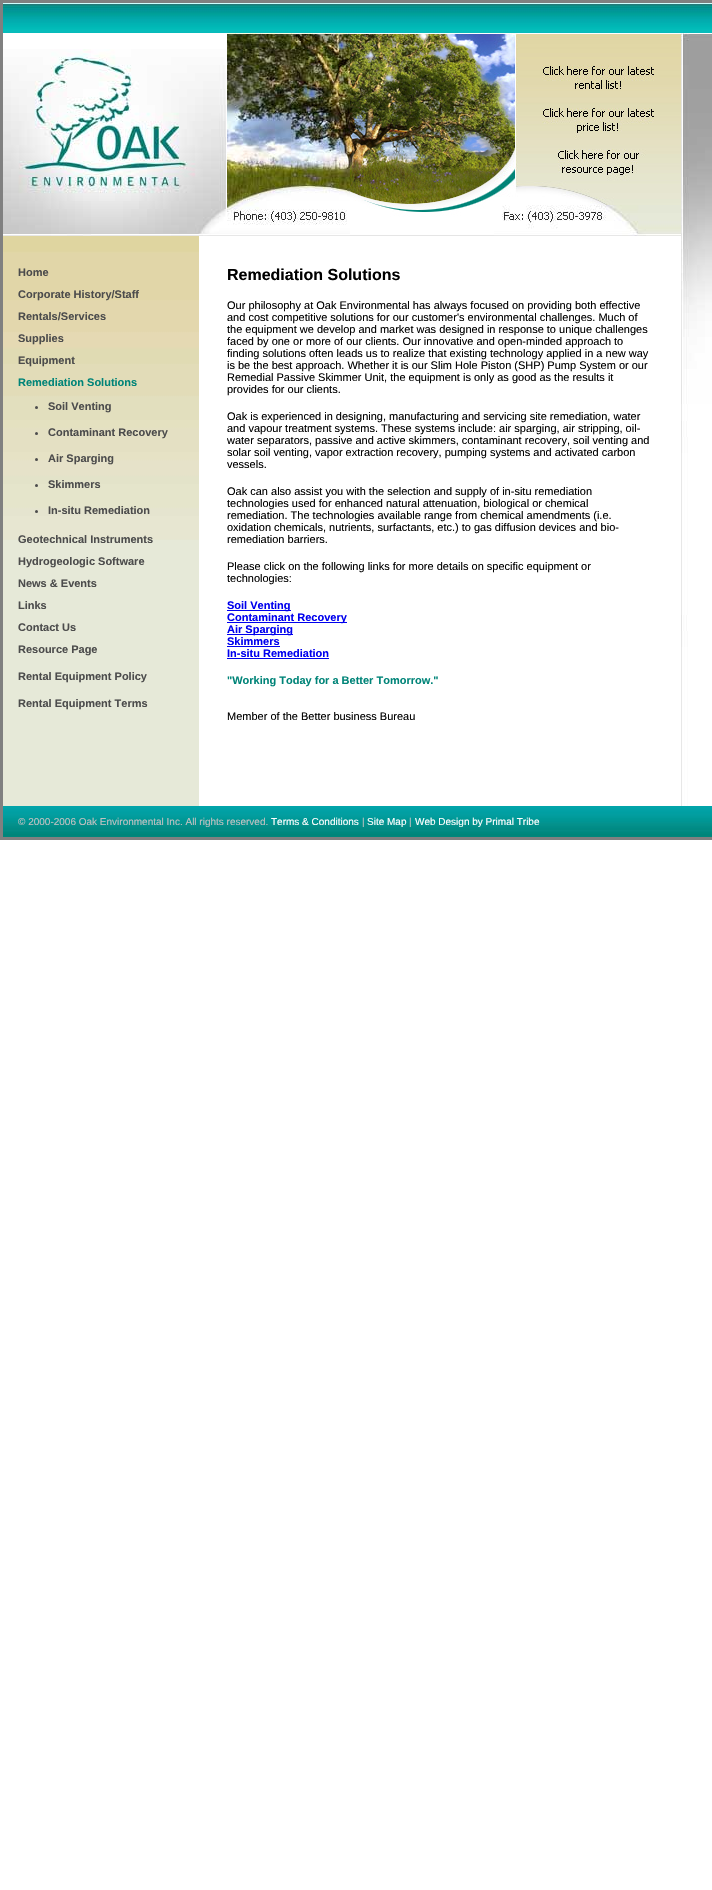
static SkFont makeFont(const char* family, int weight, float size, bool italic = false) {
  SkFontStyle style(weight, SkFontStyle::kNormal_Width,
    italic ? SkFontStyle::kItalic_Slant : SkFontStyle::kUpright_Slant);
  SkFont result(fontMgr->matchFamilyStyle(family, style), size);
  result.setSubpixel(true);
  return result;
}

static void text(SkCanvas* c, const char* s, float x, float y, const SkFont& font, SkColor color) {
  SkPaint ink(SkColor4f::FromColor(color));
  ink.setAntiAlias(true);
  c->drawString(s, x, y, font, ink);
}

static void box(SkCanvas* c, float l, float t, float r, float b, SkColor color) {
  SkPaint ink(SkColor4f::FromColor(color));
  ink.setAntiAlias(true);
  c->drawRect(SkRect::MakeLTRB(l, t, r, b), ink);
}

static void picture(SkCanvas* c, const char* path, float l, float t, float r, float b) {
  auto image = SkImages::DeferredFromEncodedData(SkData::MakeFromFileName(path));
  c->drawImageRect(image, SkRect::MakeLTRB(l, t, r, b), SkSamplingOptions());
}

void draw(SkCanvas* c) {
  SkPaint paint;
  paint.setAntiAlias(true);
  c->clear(0xffffffff);
  paint.setStyle(SkPaint::kStroke_Style);
  paint.setStrokeWidth(3);
  paint.setColor(0xff808080);
  c->drawRect(SkRect::MakeLTRB(1.5f, 1.5f, 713.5f, 838.5f), paint);
  picture(c, "img_01.png", 3, 3, 712, 33);
  picture(c, "img_02.png", 3, 49, 227, 236);
  picture(c, "img_03.png", 227, 33, 350, 236);
  picture(c, "img_04.png", 350, 34, 494, 236);
  picture(c, "img_05.png", 494, 33, 681, 100);
  picture(c, "img_06.png", 494, 100, 681, 141);
  picture(c, "img_07.png", 494, 141, 681, 205);
  picture(c, "img_08.png", 494, 205, 681, 236);
  picture(c, "img_09.png", 681, 404, 688, 806);
  picture(c, "img_10.png", 681, 33, 712, 404);
  box(c, 3, 540, 199, 806, 0xffe6e9d8);
  picture(c, "img_11.png", 3, 236, 199, 540);
  SkFont face1 = makeFont("Liberation Sans", 700, 11);
  text(c, "Home", 18, 276, face1, 0xff4c4c4c);
  text(c, "Corporate History/Staff", 18, 298, face1, 0xff4c4c4c);
  text(c, "Rentals/Services", 18, 320, face1, 0xff4c4c4c);
  text(c, "Supplies", 18, 342, face1, 0xff4c4c4c);
  text(c, "Equipment", 18, 364, face1, 0xff4c4c4c);
  text(c, "Remediation Solutions", 18, 386, face1, 0xff008478);
  paint.setStyle(SkPaint::kFill_Style);
  paint.setColor(0xff4c4c4c);
  c->drawCircle(36.5f, 407.5f, 1.5f, paint);
  text(c, "Soil Venting", 48, 410, face1, 0xff4c4c4c);
  c->drawCircle(36.5f, 433.5f, 1.5f, paint);
  text(c, "Contaminant Recovery", 48, 436, face1, 0xff4c4c4c);
  c->drawCircle(36.5f, 459.5f, 1.5f, paint);
  text(c, "Air Sparging", 48, 462, face1, 0xff4c4c4c);
  c->drawCircle(36.5f, 485.5f, 1.5f, paint);
  text(c, "Skimmers", 48, 488, face1, 0xff4c4c4c);
  c->drawCircle(36.5f, 511.5f, 1.5f, paint);
  text(c, "In-situ Remediation", 48, 514, face1, 0xff4c4c4c);
  text(c, "Geotechnical Instruments", 18, 543, face1, 0xff4c4c4c);
  text(c, "Hydrogeologic Software", 18, 565, face1, 0xff4c4c4c);
  text(c, "News & Events", 18, 587, face1, 0xff4c4c4c);
  text(c, "Links", 18, 609, face1, 0xff4c4c4c);
  text(c, "Contact Us", 18, 631, face1, 0xff4c4c4c);
  text(c, "Resource Page", 18, 653, face1, 0xff4c4c4c);
  text(c, "Rental Equipment Policy", 18, 680, face1, 0xff4c4c4c);
  text(c, "Rental Equipment Terms", 18, 707, face1, 0xff4c4c4c);
  SkFont face2 = makeFont("Liberation Sans", 700, 16);
  text(c, "Remediation Solutions", 227, 280, face2, 0xff000000);
  SkFont face3 = makeFont("Liberation Sans", 400, 11);
  text(c, "Our philosophy at Oak Environmental has always focused on providing both effective", 227, 309, face3, 0xff000000);
  text(c, "and cost competitive solutions for our customer's environmental challenges. Much of", 227, 321, face3, 0xff000000);
  text(c, "the equipment we develop and market was designed in response to unique challenges", 227, 333, face3, 0xff000000);
  text(c, "faced by one or more of our clients. Our innovative and open-minded approach to", 227, 345, face3, 0xff000000);
  text(c, "finding solutions often leads us to realize that existing technology applied in a new way", 227, 357, face3, 0xff000000);
  text(c, "is be the best approach. Whether it is our Slim Hole Piston (SHP) Pump System or our", 227, 369, face3, 0xff000000);
  text(c, "Remedial Passive Skimmer Unit, the equipment is only as good as the results it", 227, 381, face3, 0xff000000);
  text(c, "provides for our clients.", 227, 393, face3, 0xff000000);
  text(c, "Oak is experienced in designing, manufacturing and servicing site remediation, water", 227, 420, face3, 0xff000000);
  text(c, "and vapour treatment systems. These systems include: air sparging, air stripping, oil-", 227, 432, face3, 0xff000000);
  text(c, "water separators, passive and active skimmers, contaminant recovery, soil venting and", 227, 444, face3, 0xff000000);
  text(c, "solar soil venting, vapor extraction recovery, pumping systems and activated carbon", 227, 456, face3, 0xff000000);
  text(c, "vessels.", 227, 468, face3, 0xff000000);
  text(c, "Oak can also assist you with the selection and supply of in-situ remediation", 227, 495, face3, 0xff000000);
  text(c, "technologies used for enhanced natural attenuation, biological or chemical", 227, 507, face3, 0xff000000);
  text(c, "remediation. The technologies available range from chemical amendments (i.e.", 227, 519, face3, 0xff000000);
  text(c, "oxidation chemicals, nutrients, surfactants, etc.) to gas diffusion devices and bio-", 227, 531, face3, 0xff000000);
  text(c, "remediation barriers.", 227, 543, face3, 0xff000000);
  text(c, "Please click on the following links for more details on specific equipment or", 227, 570, face3, 0xff000000);
  text(c, "technologies:", 227, 582, face3, 0xff000000);
  box(c, 227, 610, 291, 611, 0xff0000ee);
  text(c, "Soil Venting", 227, 609, face1, 0xff0000ee);
  box(c, 227, 622, 347, 623, 0xff0000ee);
  text(c, "Contaminant Recovery", 227, 621, face1, 0xff0000ee);
  box(c, 227, 634, 293, 635, 0xff0000ee);
  text(c, "Air Sparging", 227, 633, face1, 0xff0000ee);
  text(c, "Skimmers", 227, 645, face1, 0xff0000ee);
  box(c, 227, 646, 280, 647, 0xff0000ee);
  text(c, "In-situ Remediation", 227, 657, face1, 0xff0000ee);
  box(c, 227, 658, 329, 659, 0xff0000ee);
  text(c, "\"Working Today for a Better Tomorrow.\"", 227, 684, face1, 0xff008478);
  text(c, "Member of the Better business Bureau", 227, 720, face3, 0xff000000);
  picture(c, "img_12.png", 3, 806, 712, 837);
  SkFont face4 = makeFont("Liberation Sans", 400, 10);
  text(c, "© 2000-2006 Oak Environmental Inc. All rights reserved.", 18, 825, face4, 0xffc1c1c1);
  text(c, "Terms & Conditions", 271, 825, face4, 0xffffffff);
  text(c, "|", 362, 825, face4, 0xffc1c1c1);
  text(c, "Site Map", 367, 825, face4, 0xffffffff);
  text(c, "|", 409, 825, face4, 0xffc1c1c1);
  text(c, "Web Design by Primal Tribe", 415, 825, face4, 0xffffffff);
}
